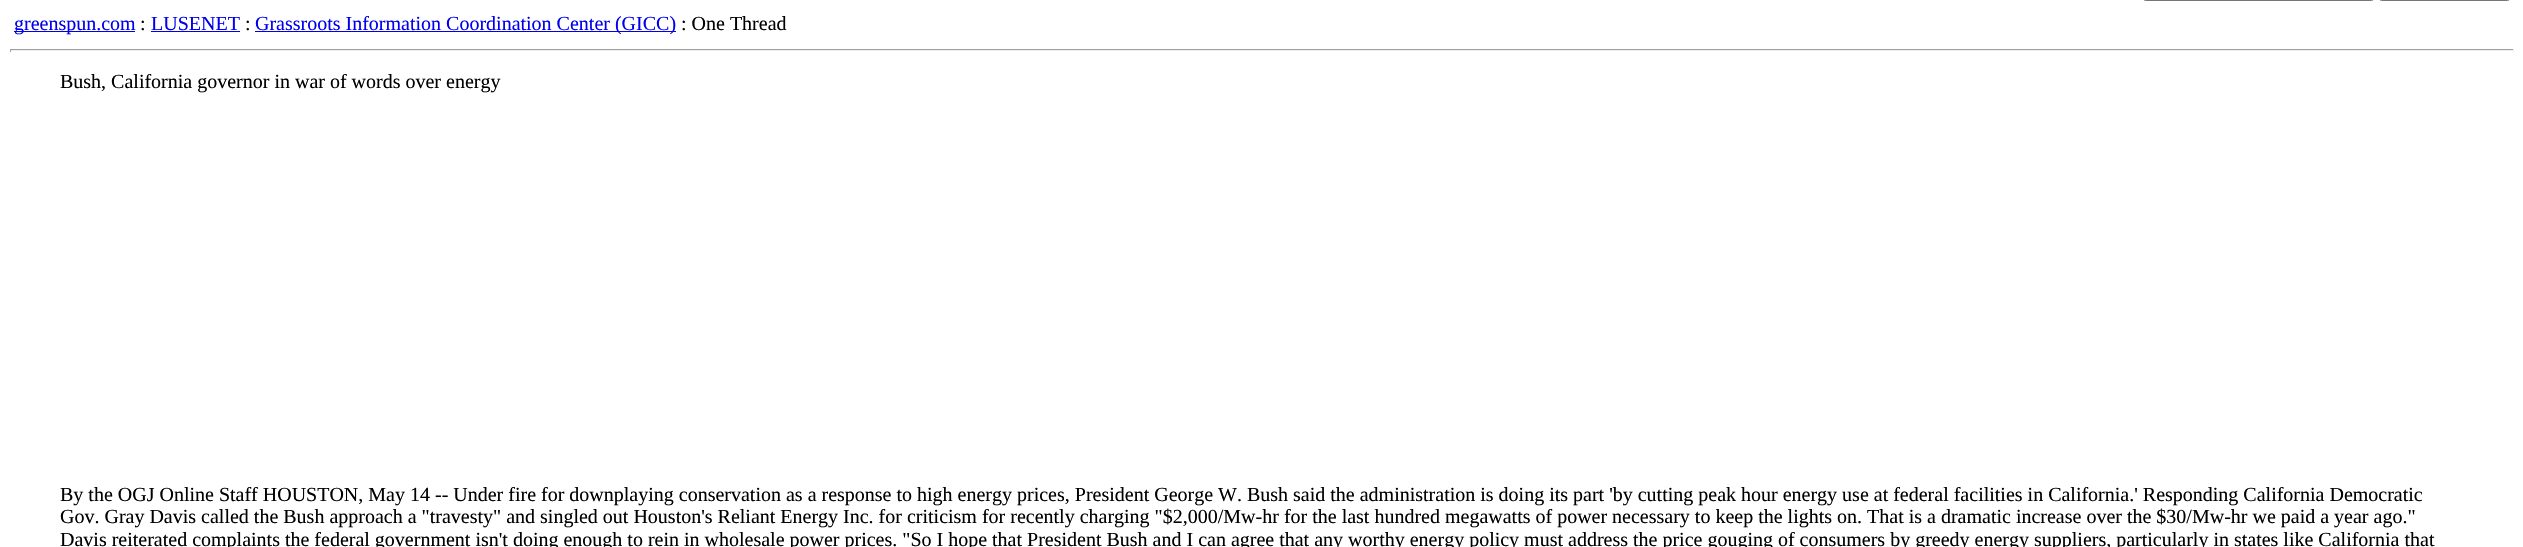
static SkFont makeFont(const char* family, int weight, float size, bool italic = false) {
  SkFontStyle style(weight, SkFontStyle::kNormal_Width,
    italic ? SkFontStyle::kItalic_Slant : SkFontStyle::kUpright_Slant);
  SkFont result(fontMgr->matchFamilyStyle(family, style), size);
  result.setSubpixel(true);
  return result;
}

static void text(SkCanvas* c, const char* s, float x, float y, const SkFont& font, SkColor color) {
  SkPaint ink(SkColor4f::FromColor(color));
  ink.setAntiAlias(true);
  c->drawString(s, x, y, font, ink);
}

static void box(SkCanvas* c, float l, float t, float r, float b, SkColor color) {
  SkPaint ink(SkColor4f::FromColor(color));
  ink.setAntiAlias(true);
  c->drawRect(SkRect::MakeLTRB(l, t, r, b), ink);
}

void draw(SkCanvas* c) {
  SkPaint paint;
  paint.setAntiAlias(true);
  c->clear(0xffffffff);
  paint.setStyle(SkPaint::kStroke_Style);
  paint.setStrokeWidth(1);
  paint.setColor(0xff767676);
  c->drawRoundRect(SkRect::MakeLTRB(2143.5f, -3.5f, 2373.5f, 0.5f), 2, 2, paint);
  c->drawRoundRect(SkRect::MakeLTRB(2379.5f, -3.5f, 2509.5f, 0.5f), 2, 2, paint);
  box(c, 14, 31, 135, 32, 0xff0000ee);
  SkFont face1 = makeFont("Liberation Serif", 400, 20);
  text(c, "greenspun.com", 14, 30, face1, 0xff0000ee);
  text(c, ":", 140, 30, face1, 0xff000000);
  text(c, "LUSENET", 151, 30, face1, 0xff0000ee);
  box(c, 151, 31, 240, 32, 0xff0000ee);
  text(c, ":", 245, 30, face1, 0xff000000);
  box(c, 255, 31, 676, 32, 0xff0000ee);
  text(c, "Grassroots Information Coordination Center (GICC)", 255, 30, face1, 0xff0000ee);
  text(c, ": One Thread", 681, 30, face1, 0xff000000);
  box(c, 10, 49, 2514, 50, 0xff9f9f9f);
  box(c, 2513, 49, 2514, 52, 0xffeeeeee);
  box(c, 10, 50, 2514, 51, 0xffeeeeee);
  box(c, 10, 49, 11, 52, 0xff9f9f9f);
  text(c, "Bush, California governor in war of words over energy", 60, 88, face1, 0xff000000);
  text(c, "By the OGJ Online Staff HOUSTON, May 14 -- Under fire for downplaying conservation as a response to high energy prices, President George W. Bush said the administration is doing its part 'by cutting peak hour energy use at federal facilities in California.' Responding California Democratic", 60, 501, face1, 0xff000000);
  text(c, "Gov. Gray Davis called the Bush approach a \"travesty\" and singled out Houston's Reliant Energy Inc. for criticism for recently charging \"$2,000/Mw-hr for the last hundred megawatts of power necessary to keep the lights on. That is a dramatic increase over the $30/Mw-hr we paid a year ago.\"", 60, 523, face1, 0xff000000);
  text(c, "Davis reiterated complaints the federal government isn't doing enough to rein in wholesale power prices. \"So I hope that President Bush and I can agree that any worthy energy policy must address the price gouging of consumers by greedy energy suppliers, particularly in states like California that", 60, 546, face1, 0xff000000);
}
